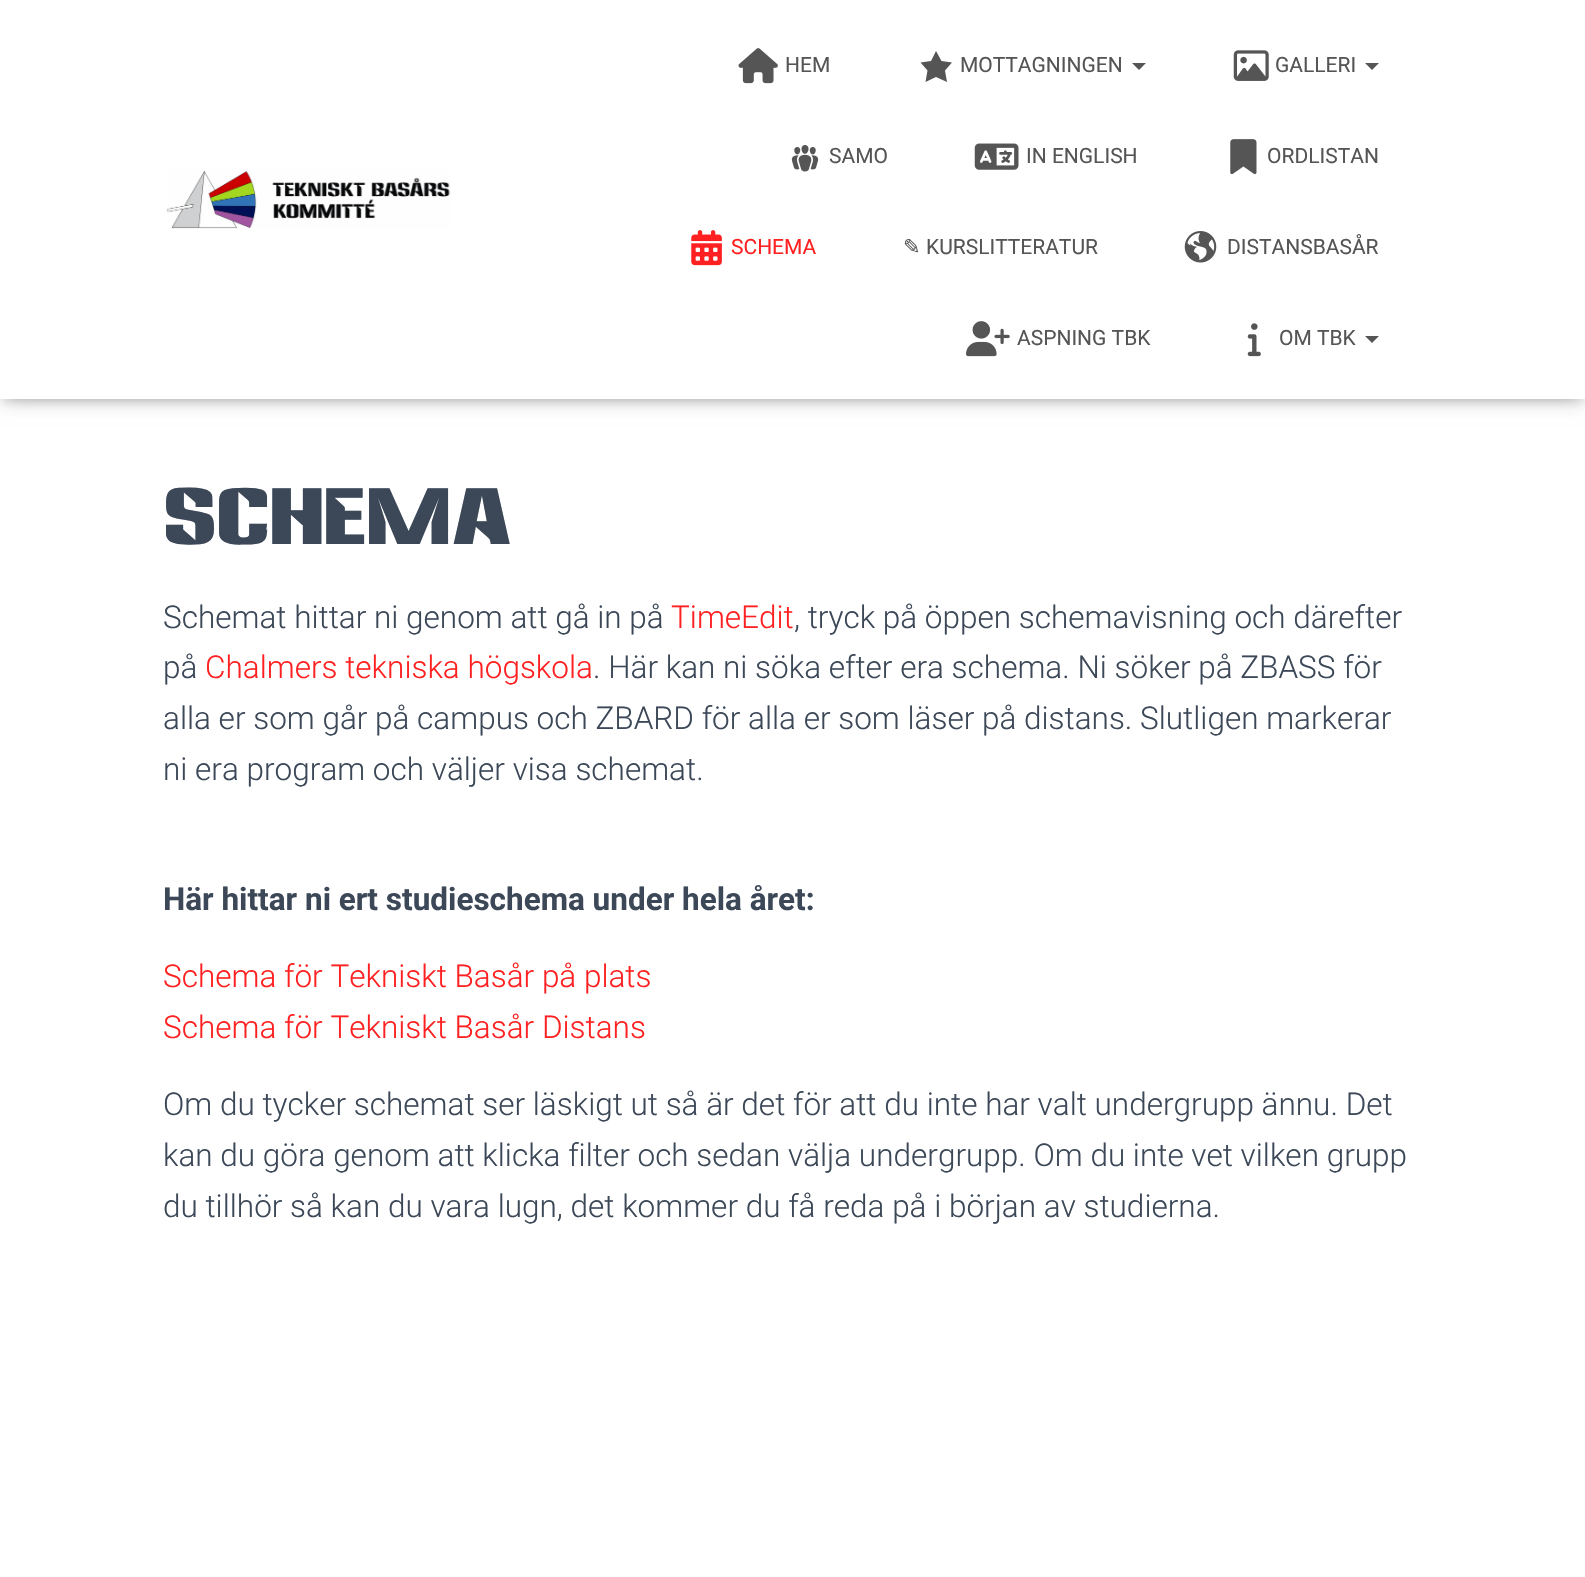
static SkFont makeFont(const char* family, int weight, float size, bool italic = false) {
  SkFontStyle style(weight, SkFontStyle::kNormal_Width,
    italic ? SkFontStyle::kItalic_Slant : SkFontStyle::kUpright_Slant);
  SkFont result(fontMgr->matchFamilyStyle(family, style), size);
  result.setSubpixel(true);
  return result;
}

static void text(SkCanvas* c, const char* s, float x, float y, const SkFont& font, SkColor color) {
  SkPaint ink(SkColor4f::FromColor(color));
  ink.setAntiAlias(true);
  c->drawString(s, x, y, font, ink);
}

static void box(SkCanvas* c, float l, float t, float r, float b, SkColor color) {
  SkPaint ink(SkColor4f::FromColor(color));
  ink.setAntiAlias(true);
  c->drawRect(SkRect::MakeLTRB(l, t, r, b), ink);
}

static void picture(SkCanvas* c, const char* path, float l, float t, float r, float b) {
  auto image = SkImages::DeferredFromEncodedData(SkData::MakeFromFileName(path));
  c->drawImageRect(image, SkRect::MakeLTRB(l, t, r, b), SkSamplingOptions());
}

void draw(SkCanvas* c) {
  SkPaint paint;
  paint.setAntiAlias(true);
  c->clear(0xffffffff);
  paint.setColor(0x1a000000);
  paint.setMaskFilter(SkMaskFilter::MakeBlur(kNormal_SkBlurStyle, 4.5f));
  c->drawRect(SkRect::MakeLTRB(4, 11, 1582, 403), paint);
  paint.setMaskFilter(nullptr);
  paint.setColor(0x1f000000);
  paint.setMaskFilter(SkMaskFilter::MakeBlur(kNormal_SkBlurStyle, 9));
  c->drawRect(SkRect::MakeLTRB(0, 2, 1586, 401), paint);
  paint.setMaskFilter(nullptr);
  paint.setColor(0x6b000000);
  paint.setMaskFilter(SkMaskFilter::MakeBlur(kNormal_SkBlurStyle, 9));
  c->drawRect(SkRect::MakeLTRB(11, 12, 1575, 390), paint);
  paint.setMaskFilter(nullptr);
  box(c, 0, 0, 1585, 399, 0xffffffff);
  picture(c, "img_01.png", 167, 170, 451, 229);
  picture(c, "img_02.png", 738, 48, 778, 84);
  SkFont face1 = makeFont("Roboto", 400, 21);
  text(c, "HEM", 785, 72, face1, 0xff555555);
  paint.setColor(0xff555555);
  c->drawPath(SkPathBuilder().moveTo(936, 51).lineTo(941.5f, 61).lineTo(952, 62.5f).lineTo(945, 70.5f).lineTo(947, 82).lineTo(936, 77).lineTo(925.5f, 82).lineTo(927.5f, 70.5f).lineTo(920.5f, 62.5f).lineTo(931, 61).close().detach(), paint);
  text(c, "MOTTAGNINGEN", 960, 72, face1, 0xff555555);
  c->drawPath(SkPathBuilder().moveTo(1132, 63).lineTo(1146, 63).lineTo(1139, 70).close().detach(), paint);
  picture(c, "img_03.png", 1233, 50, 1269, 81);
  text(c, "GALLERI", 1275, 72, face1, 0xff555555);
  c->drawPath(SkPathBuilder().moveTo(1365, 63).lineTo(1379, 63).lineTo(1372, 70).close().detach(), paint);
  picture(c, "img_04.png", 791, 145, 819, 172);
  text(c, "SAMO", 829, 163, face1, 0xff555555);
  picture(c, "img_05.png", 974, 143, 1019, 170);
  text(c, "IN ENGLISH", 1026, 163, face1, 0xff555555);
  picture(c, "img_06.png", 1230, 139, 1257, 175);
  text(c, "ORDLISTAN", 1267, 163, face1, 0xff555555);
  picture(c, "img_07.png", 691, 230, 722, 266);
  text(c, "SCHEMA", 731, 254, face1, 0xffff2121);
  SkFont face2 = makeFont("DejaVu Sans", 400, 21);
  text(c, "✎", 903, 254, face2, 0xff555555);
  text(c, "KURSLITTERATUR", 926, 254, face1, 0xff555555);
  picture(c, "img_08.png", 1184, 231, 1217, 263);
  text(c, "DISTANSBASÅR", 1227, 254, face1, 0xff555555);
  picture(c, "img_09.png", 966, 321, 1010, 357);
  text(c, "ASPNING TBK", 1017, 345, face1, 0xff555555);
  picture(c, "img_10.png", 1247, 323, 1261, 357);
  text(c, "OM TBK", 1279, 345, face1, 0xff555555);
  c->drawPath(SkPathBuilder().moveTo(1365, 336).lineTo(1379, 336).lineTo(1372, 343).close().detach(), paint);
  SkFont face3 = makeFont("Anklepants", 700, 73.5f);
  text(c, "Schema", 163, 544, face3, 0xff3c4858);
  SkFont face4 = makeFont("Roboto", 300, 31.5f);
  text(c, "Schemat hittar ni genom att gå in på", 163, 628, face4, 0xff3c4858);
  text(c, "TimeEdit", 671, 628, face4, 0xffff2121);
  text(c, ", tryck på öppen schemavisning och därefter", 794, 628, face4, 0xff3c4858);
  text(c, "på", 163, 678, face4, 0xff3c4858);
  text(c, "Chalmers tekniska högskola", 205, 678, face4, 0xffff2121);
  text(c, ". Här kan ni söka efter era schema. Ni söker på ZBASS för", 593, 678, face4, 0xff3c4858);
  text(c, "alla er som går på campus och ZBARD för alla er som läser på distans. Slutligen markerar", 163, 729, face4, 0xff3c4858);
  text(c, "ni era program och väljer visa schemat.", 163, 780, face4, 0xff3c4858);
  SkFont face5 = makeFont("Roboto", 700, 31.5f);
  text(c, "Här hittar ni ert studieschema under hela året:", 163, 910, face5, 0xff3c4858);
  text(c, "Schema för Tekniskt Basår på plats", 163, 987, face4, 0xffff2121);
  text(c, "Schema för Tekniskt Basår Distans", 163, 1038, face4, 0xffff2121);
  text(c, "Om du tycker schemat ser läskigt ut så är det för att du inte har valt undergrupp ännu. Det", 163, 1115, face4, 0xff3c4858);
  text(c, "kan du göra genom att klicka filter och sedan välja undergrupp. Om du inte vet vilken grupp", 163, 1166, face4, 0xff3c4858);
  text(c, "du tillhör så kan du vara lugn, det kommer du få reda på i början av studierna.", 163, 1217, face4, 0xff3c4858);
}
